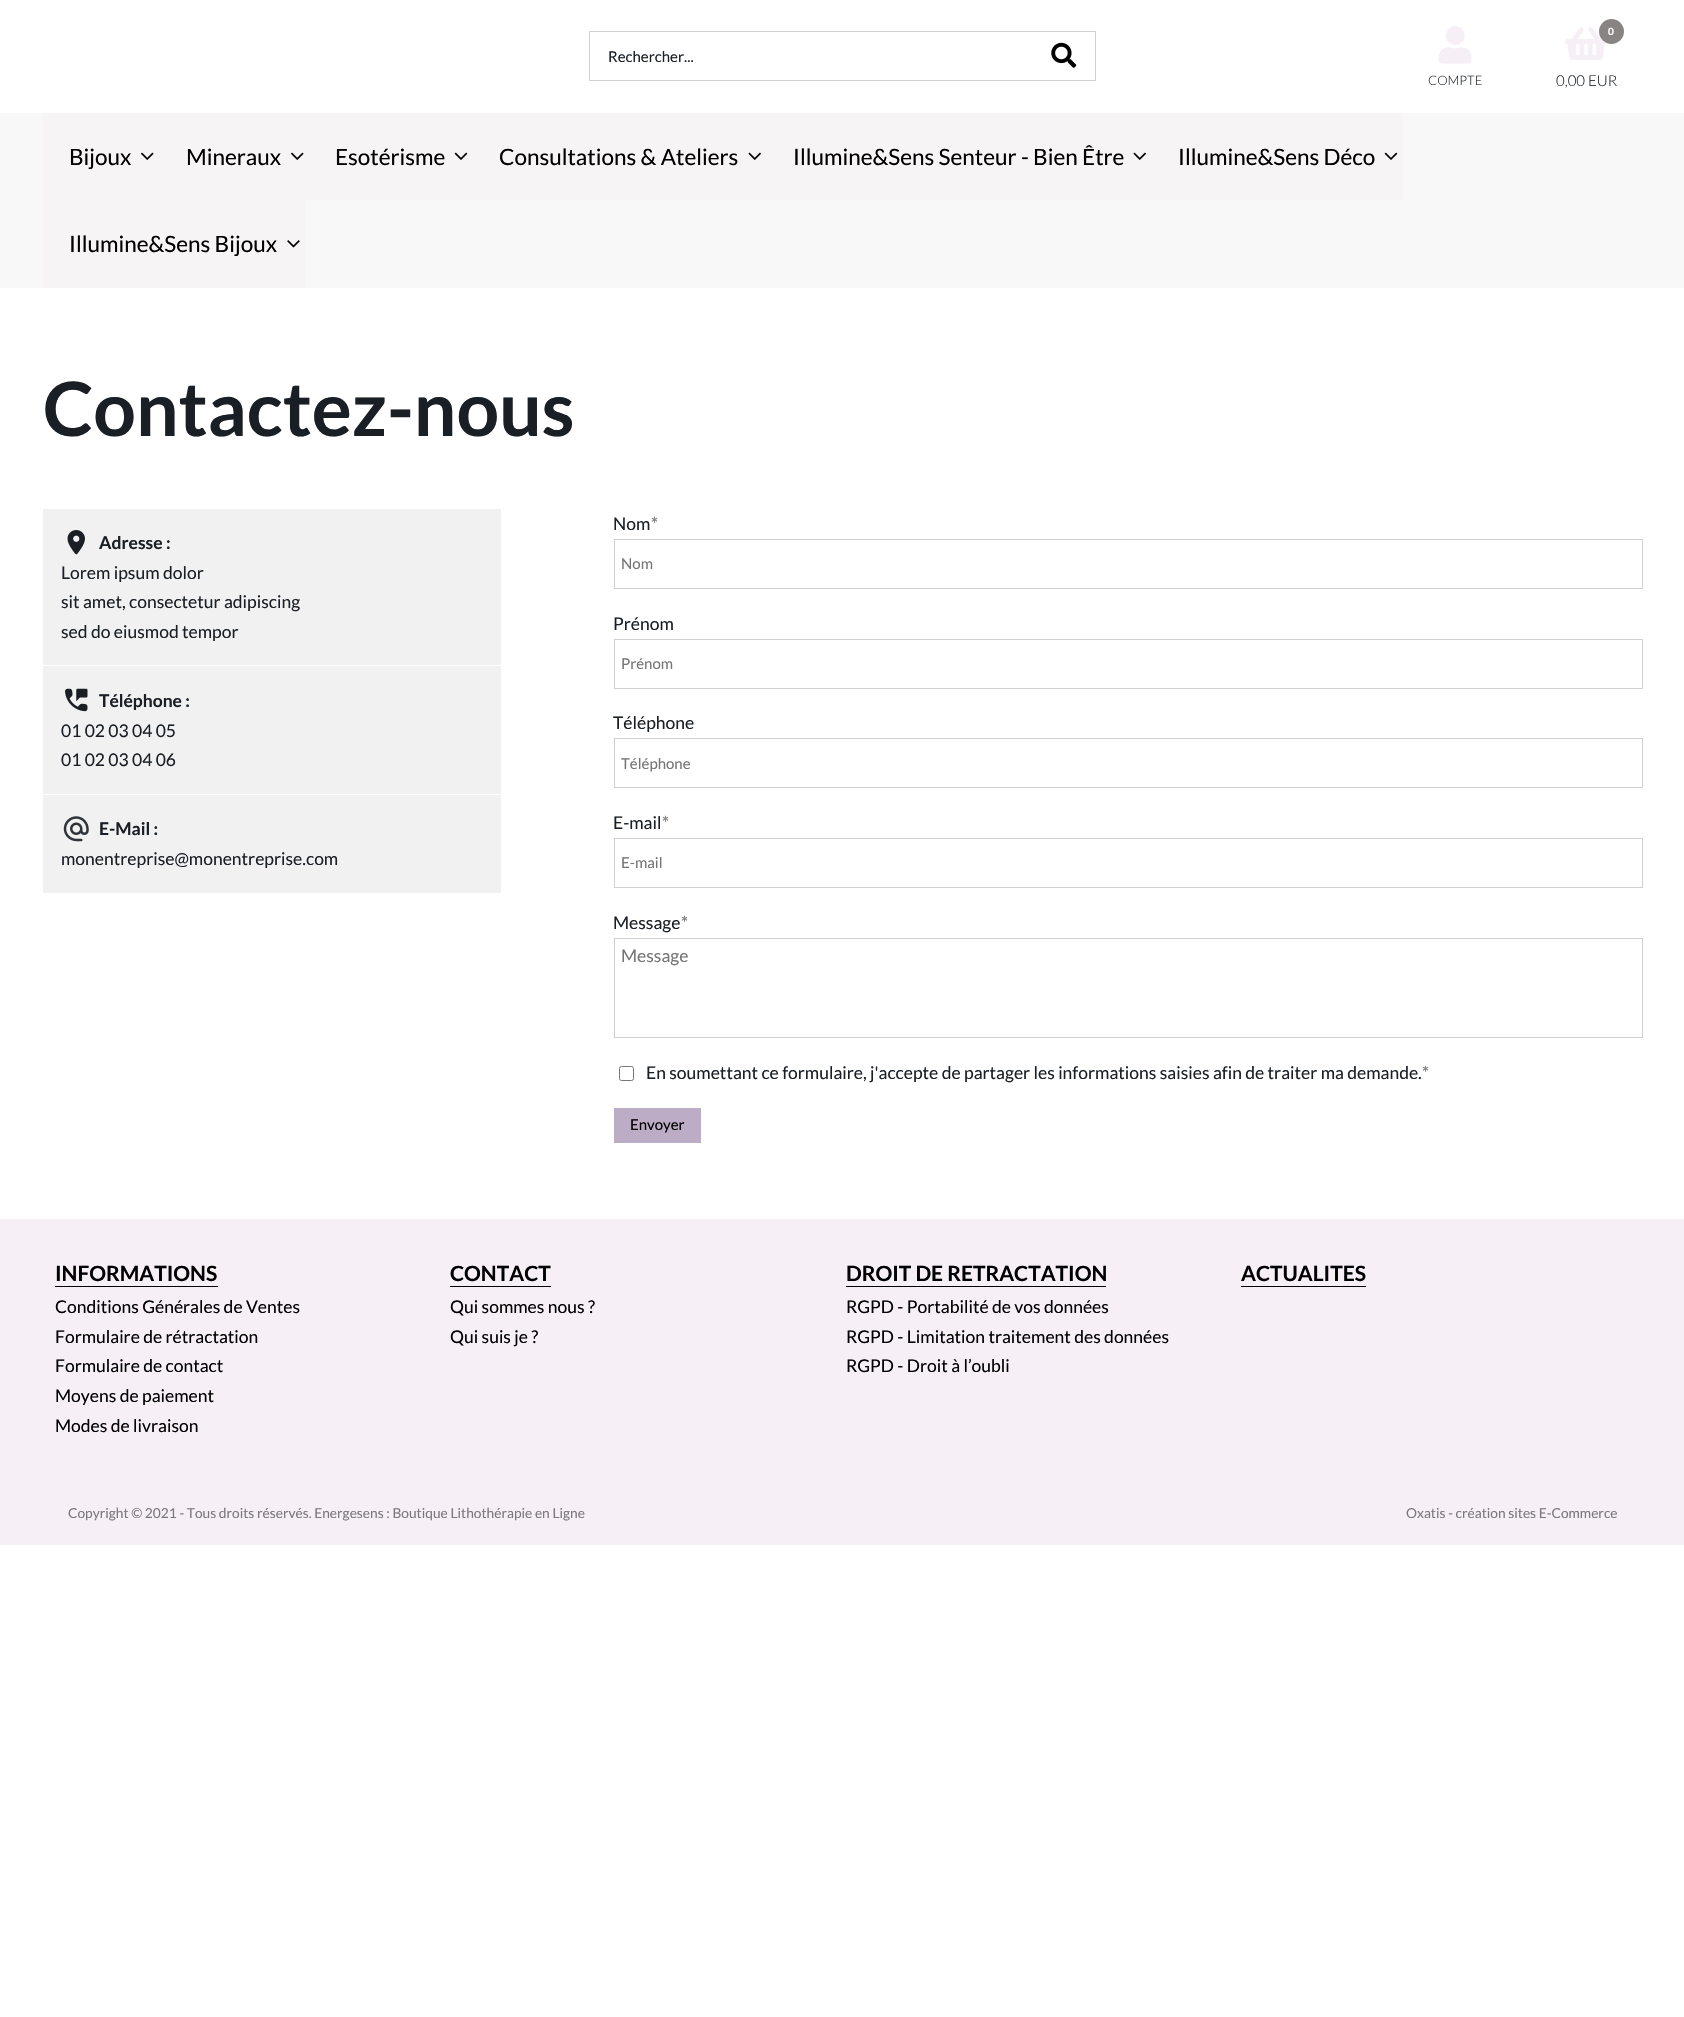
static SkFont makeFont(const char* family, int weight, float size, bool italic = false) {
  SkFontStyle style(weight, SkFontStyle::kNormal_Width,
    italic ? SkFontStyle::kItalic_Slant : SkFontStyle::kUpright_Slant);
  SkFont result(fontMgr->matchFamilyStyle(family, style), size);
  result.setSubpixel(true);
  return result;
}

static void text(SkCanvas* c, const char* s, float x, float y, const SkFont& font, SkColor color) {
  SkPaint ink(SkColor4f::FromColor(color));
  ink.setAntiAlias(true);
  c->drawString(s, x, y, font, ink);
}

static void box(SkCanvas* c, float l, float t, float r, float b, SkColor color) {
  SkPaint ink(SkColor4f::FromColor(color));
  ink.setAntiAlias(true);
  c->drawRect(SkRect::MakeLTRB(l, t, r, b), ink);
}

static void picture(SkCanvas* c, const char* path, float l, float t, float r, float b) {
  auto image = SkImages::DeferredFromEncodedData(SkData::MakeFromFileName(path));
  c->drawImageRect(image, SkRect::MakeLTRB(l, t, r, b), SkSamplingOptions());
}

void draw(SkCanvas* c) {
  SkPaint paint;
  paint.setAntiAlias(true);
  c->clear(0xffffffff);
  box(c, 589, 31, 1096, 32, 0xffd0d0d0);
  box(c, 589, 80, 1033, 81, 0xffd0d0d0);
  box(c, 589, 31, 590, 81, 0xffd0d0d0);
  SkFont face1 = makeFont("Lato", 400, 15);
  text(c, "Rechercher...", 608, 62, face1, 0xff1a1f26);
  box(c, 1095, 31, 1096, 81, 0xffd0d0d0);
  box(c, 1033, 80, 1096, 81, 0xffd0d0d0);
  picture(c, "img_01.png", 1051, 42, 1077, 68);
  picture(c, "img_02.png", 1438, 26, 1472, 64);
  SkFont face2 = makeFont("Lato", 300, 13);
  text(c, "COMPTE", 1428, 85, face2, 0xff1a1f26);
  picture(c, "img_03.png", 1565, 27, 1607, 60);
  paint.setColor(0xff898484);
  c->drawCircle(1611.5f, 31.5f, 12.5f, paint);
  SkFont face3 = makeFont("Lato", 700, 10);
  text(c, "0", 1608, 35, face3, 0xffffffff);
  SkFont face4 = makeFont("Lato", 300, 15);
  text(c, "0,00 EUR", 1556, 86, face4, 0xff1a1f26);
  box(c, 0, 113, 1684, 288, 0xfff8f8f8);
  box(c, 43, 113, 1403, 200, 0xfff6f4f4);
  SkFont face5 = makeFont("Lato", 400, 22.5f);
  text(c, "Bijoux", 69, 165, face5, 0xff000000);
  picture(c, "img_04.png", 141, 152, 154, 160);
  text(c, "Mineraux", 186, 165, face5, 0xff000000);
  picture(c, "img_04.png", 291, 152, 304, 160);
  text(c, "Esotérisme", 335, 165, face5, 0xff000000);
  picture(c, "img_05.png", 454, 152, 468, 160);
  text(c, "Consultations & Ateliers", 499, 165, face5, 0xff000000);
  picture(c, "img_06.png", 748, 152, 761, 160);
  text(c, "Illumine&Sens Senteur - Bien Être", 793, 165, face5, 0xff000000);
  picture(c, "img_06.png", 1133, 152, 1146, 160);
  text(c, "Illumine&Sens Déco", 1178, 165, face5, 0xff000000);
  picture(c, "img_05.png", 1384, 152, 1398, 160);
  box(c, 43, 200, 305, 288, 0xfff6f4f4);
  text(c, "Illumine&Sens Bijoux", 69, 252, face5, 0xff000000);
  picture(c, "img_07.png", 287, 240, 300, 248);
  SkFont face6 = makeFont("Lato", 700, 75);
  text(c, "Contactez-nous", 43, 436, face6, 0xff1a1f26);
  box(c, 43, 509, 501, 893, 0xfff1f1f1);
  box(c, 43, 665, 501, 666, 0xffffffff);
  picture(c, "img_08.png", 67, 530, 85, 555);
  SkFont face7 = makeFont("Lato", 700, 17.5f);
  text(c, "Adresse :", 99, 549, face7, 0xff1a1f26);
  SkFont face8 = makeFont("Lato", 400, 17.5f);
  text(c, "Lorem ipsum dolor", 61, 579, face8, 0xff1a1f26);
  text(c, "sit amet, consectetur adipiscing", 61, 608, face8, 0xff1a1f26);
  text(c, "sed do eiusmod tempor", 61, 638, face8, 0xff1a1f26);
  box(c, 43, 794, 501, 795, 0xffffffff);
  picture(c, "img_09.png", 65, 688, 88, 712);
  text(c, "Téléphone :", 99, 707, face7, 0xff1a1f26);
  text(c, "01 02 03 04 05", 61, 737, face8, 0xff1a1f26);
  text(c, "01 02 03 04 06", 61, 766, face8, 0xff1a1f26);
  picture(c, "img_10.png", 63, 816, 89, 842);
  text(c, "E-Mail :", 99, 835, face7, 0xff1a1f26);
  text(c, "monentreprise@monentreprise.com", 61, 865, face8, 0xff1a1f26);
  text(c, "Nom", 613, 530, face8, 0xff1a1f26);
  text(c, "*", 651, 530, face7, 0xff898484);
  paint.setStyle(SkPaint::kStroke_Style);
  paint.setStrokeWidth(1);
  paint.setColor(0xffd0d0d0);
  c->drawRect(SkRect::MakeLTRB(614.5f, 539.5f, 1642.5f, 588.5f), paint);
  text(c, "Nom", 621, 569, face1, 0xff757575);
  text(c, "Prénom", 613, 630, face8, 0xff1a1f26);
  c->drawRect(SkRect::MakeLTRB(614.5f, 639.5f, 1642.5f, 688.5f), paint);
  text(c, "Prénom", 621, 669, face1, 0xff757575);
  text(c, "Téléphone", 613, 729, face8, 0xff1a1f26);
  c->drawRect(SkRect::MakeLTRB(614.5f, 738.5f, 1642.5f, 787.5f), paint);
  text(c, "Téléphone", 621, 769, face1, 0xff757575);
  text(c, "E-mail", 613, 829, face8, 0xff1a1f26);
  text(c, "*", 662, 829, face7, 0xff898484);
  c->drawRect(SkRect::MakeLTRB(614.5f, 838.5f, 1642.5f, 887.5f), paint);
  text(c, "E-mail", 621, 868, face1, 0xff757575);
  text(c, "Message", 613, 929, face8, 0xff1a1f26);
  text(c, "*", 681, 929, face7, 0xff898484);
  c->drawRect(SkRect::MakeLTRB(614.5f, 938.5f, 1642.5f, 1037.5f), paint);
  text(c, "Message", 621, 962, face8, 0xff757575);
  paint.setColor(0xff767676);
  c->drawRoundRect(SkRect::MakeLTRB(619.5f, 1066.5f, 633.5f, 1080.5f), 2, 2, paint);
  text(c, "En soumettant ce formulaire, j'accepte de partager les informations saisies afin de traiter ma demande.", 646, 1079, face8, 0xff1a1f26);
  text(c, "*", 1422, 1079, face7, 0xff898484);
  box(c, 614, 1108, 701, 1143, 0xffbcacc5);
  text(c, "Envoyer", 630, 1130, face1, 0xff000000);
  box(c, 0, 1219, 1684, 1545, 0xfff6eff6);
  SkFont face9 = makeFont("Lato", 700, 21);
  text(c, "INFORMATIONS", 55, 1281, face9, 0xff000000);
  box(c, 55, 1286, 218, 1287, 0xff000000);
  text(c, "Conditions Générales de Ventes", 55, 1313, face8, 0xff000000);
  text(c, "Formulaire de rétractation", 55, 1343, face8, 0xff000000);
  text(c, "Formulaire de contact", 55, 1372, face8, 0xff000000);
  text(c, "Moyens de paiement", 55, 1402, face8, 0xff000000);
  text(c, "Modes de livraison", 55, 1432, face8, 0xff000000);
  text(c, "CONTACT", 450, 1281, face9, 0xff000000);
  box(c, 450, 1286, 551, 1287, 0xff000000);
  text(c, "Qui sommes nous ?", 450, 1313, face8, 0xff000000);
  text(c, "Qui suis je ?", 450, 1343, face8, 0xff000000);
  text(c, "DROIT DE RETRACTATION", 846, 1281, face9, 0xff000000);
  box(c, 846, 1286, 1106, 1287, 0xff000000);
  text(c, "RGPD - Portabilité de vos données", 846, 1313, face8, 0xff000000);
  text(c, "RGPD - Limitation traitement des données", 846, 1343, face8, 0xff000000);
  text(c, "RGPD - Droit à l’oubli", 846, 1372, face8, 0xff000000);
  text(c, "ACTUALITES", 1241, 1281, face9, 0xff000000);
  box(c, 1241, 1286, 1366, 1287, 0xff000000);
  SkFont face10 = makeFont("Lato", 400, 13.75f);
  text(c, "Copyright © 2021 - Tous droits réservés. Energesens : Boutique Lithothérapie en Ligne", 68, 1518, face10, 0xff7b787b);
  text(c, "Oxatis - création sites E-Commerce", 1406, 1518, face10, 0xff7b787b);
}
